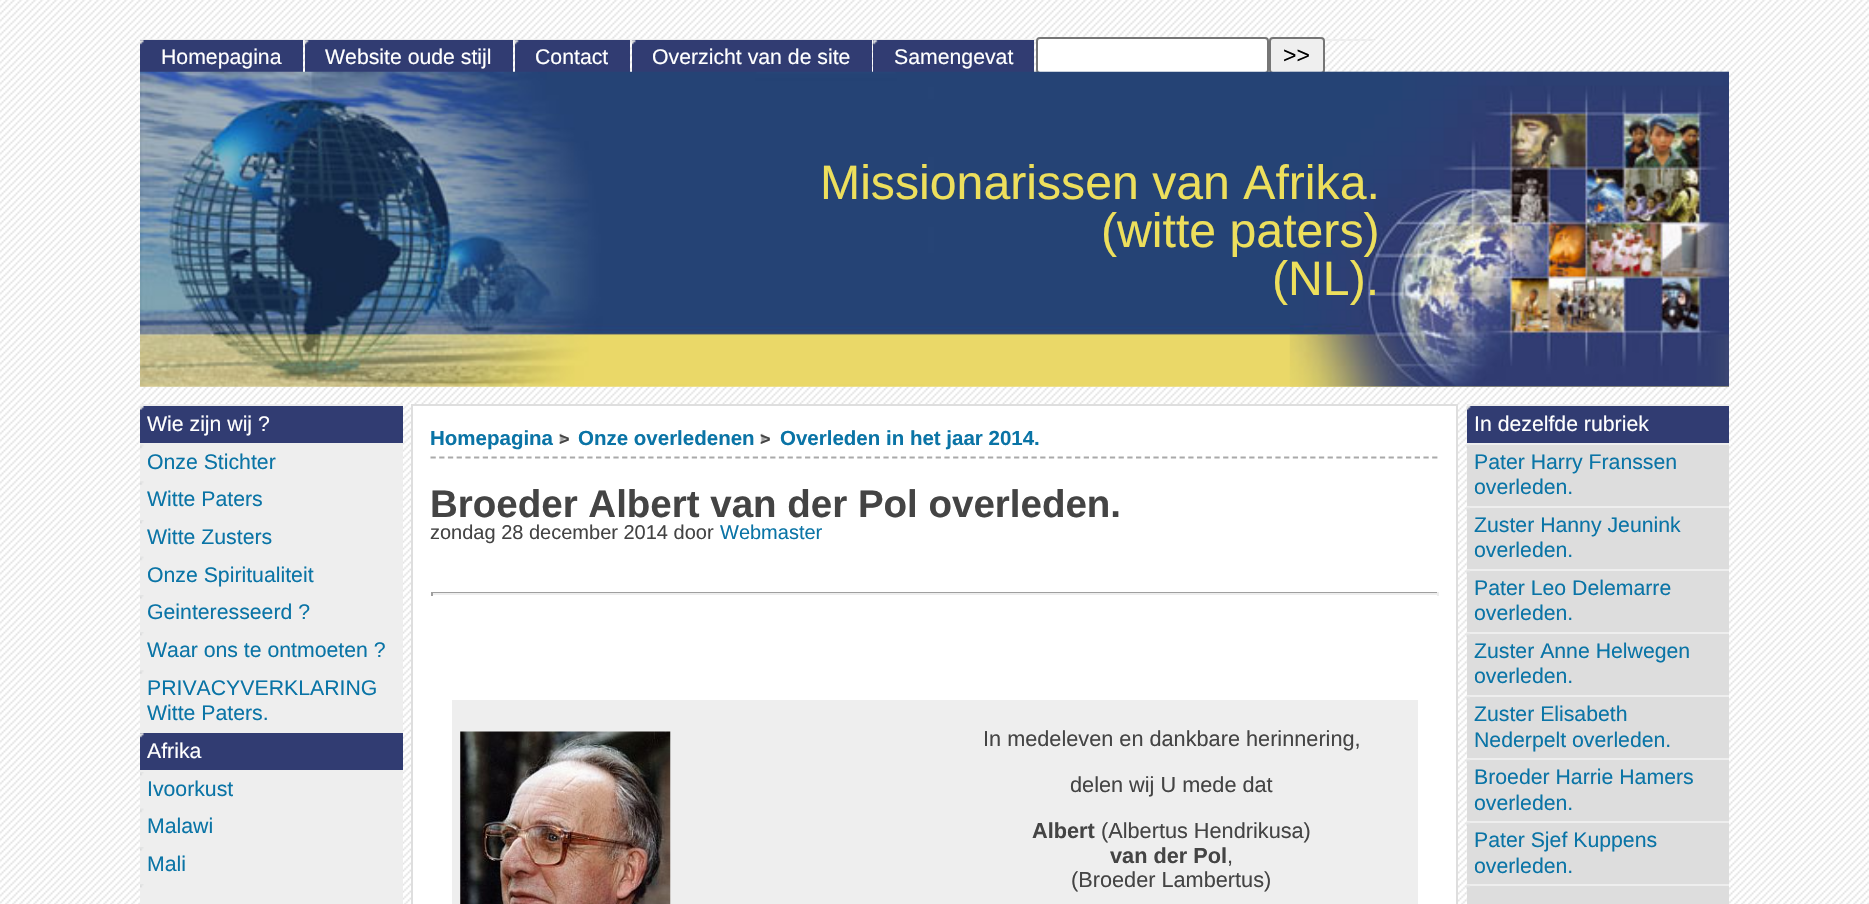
static SkFont makeFont(const char* family, int weight, float size, bool italic = false) {
  SkFontStyle style(weight, SkFontStyle::kNormal_Width,
    italic ? SkFontStyle::kItalic_Slant : SkFontStyle::kUpright_Slant);
  SkFont result(fontMgr->matchFamilyStyle(family, style), size);
  result.setSubpixel(true);
  return result;
}

static void text(SkCanvas* c, const char* s, float x, float y, const SkFont& font, SkColor color) {
  SkPaint ink(SkColor4f::FromColor(color));
  ink.setAntiAlias(true);
  c->drawString(s, x, y, font, ink);
}

static void box(SkCanvas* c, float l, float t, float r, float b, SkColor color) {
  SkPaint ink(SkColor4f::FromColor(color));
  ink.setAntiAlias(true);
  c->drawRect(SkRect::MakeLTRB(l, t, r, b), ink);
}

static void picture(SkCanvas* c, const char* path, float l, float t, float r, float b) {
  auto image = SkImages::DeferredFromEncodedData(SkData::MakeFromFileName(path));
  c->drawImageRect(image, SkRect::MakeLTRB(l, t, r, b), SkSamplingOptions());
}

void draw(SkCanvas* c) {
  SkPaint paint;
  paint.setAntiAlias(true);
  c->clear(0xffdddddd);
  picture(c, "img_01.png", 0, 0, 1869, 904);
  box(c, 140, 39, 1374, 41, 0xffeeeeee);
  box(c, 140, 40, 303, 72, 0xff313c72);
  picture(c, "img_02.png", 140, 40, 144, 45);
  SkFont face1 = makeFont("Liberation Sans", 400, 21.25f);
  text(c, "Homepagina", 161, 64, face1, 0xffffffff);
  box(c, 305, 40, 513, 72, 0xff313c72);
  picture(c, "img_03.png", 304, 40, 309, 45);
  text(c, "Website oude stijl", 325, 64, face1, 0xffffffff);
  box(c, 515, 40, 630, 72, 0xff313c72);
  picture(c, "img_03.png", 514, 40, 519, 45);
  text(c, "Contact", 535, 64, face1, 0xffffffff);
  box(c, 632, 40, 872, 72, 0xff313c72);
  picture(c, "img_04.png", 631, 40, 636, 45);
  text(c, "Overzicht van de site", 652, 64, face1, 0xffffffff);
  box(c, 873, 40, 1034, 72, 0xff313c72);
  picture(c, "img_05.png", 873, 40, 878, 45);
  text(c, "Samengevat", 894, 64, face1, 0xffffffff);
  paint.setColor(0xffffffff);
  c->drawRoundRect(SkRect::MakeLTRB(1037, 38, 1268, 73), 3, 3, paint);
  paint.setStyle(SkPaint::kStroke_Style);
  paint.setStrokeWidth(2);
  paint.setColor(0xff767676);
  c->drawRoundRect(SkRect::MakeLTRB(1037, 38, 1268, 73), 3, 3, paint);
  paint.setStyle(SkPaint::kFill_Style);
  paint.setColor(0xffefefef);
  c->drawRoundRect(SkRect::MakeLTRB(1270, 38, 1324, 73), 3, 3, paint);
  paint.setStyle(SkPaint::kStroke_Style);
  paint.setColor(0xff767676);
  c->drawRoundRect(SkRect::MakeLTRB(1270, 38, 1324, 73), 3, 3, paint);
  SkFont face2 = makeFont("Liberation Sans", 400, 23);
  text(c, ">>", 1283, 63, face2, 0xff000000);
  box(c, 140, 404, 403, 406, 0xffeeeeee);
  box(c, 140, 406, 403, 443, 0xff313c72);
  picture(c, "img_06.png", 140, 406, 144, 410);
  text(c, "Wie zijn wij ?", 147, 431, face1, 0xffffffff);
  box(c, 140, 443, 403, 733, 0xffeeeeee);
  picture(c, "img_07.png", 140, 444, 144, 449);
  text(c, "Onze Stichter", 147, 469, face1, 0xff0a74a6);
  picture(c, "img_08.png", 140, 481, 144, 485);
  text(c, "Witte Paters", 147, 506, face1, 0xff0a74a6);
  picture(c, "img_09.png", 140, 520, 144, 524);
  text(c, "Witte Zusters", 147, 544, face1, 0xff0a74a6);
  picture(c, "img_07.png", 140, 556, 144, 561);
  text(c, "Onze Spiritualiteit", 147, 582, face1, 0xff0a74a6);
  picture(c, "img_10.png", 140, 595, 144, 599);
  text(c, "Geinteresseerd ?", 147, 619, face1, 0xff0a74a6);
  picture(c, "img_09.png", 140, 632, 144, 636);
  text(c, "Waar ons te ontmoeten ?", 147, 657, face1, 0xff0a74a6);
  picture(c, "img_08.png", 140, 670, 144, 674);
  text(c, "PRIVACYVERKLARING", 147, 695, face1, 0xff0a74a6);
  text(c, "Witte Paters.", 147, 720, face1, 0xff0a74a6);
  box(c, 140, 733, 403, 770, 0xff313c72);
  picture(c, "img_02.png", 140, 733, 144, 738);
  text(c, "Afrika", 147, 758, face1, 0xffffffff);
  box(c, 140, 770, 403, 904, 0xffeeeeee);
  picture(c, "img_09.png", 140, 772, 144, 776);
  text(c, "Ivoorkust", 147, 796, face1, 0xff0a74a6);
  picture(c, "img_07.png", 140, 808, 144, 813);
  text(c, "Malawi", 147, 833, face1, 0xff0a74a6);
  picture(c, "img_10.png", 140, 847, 144, 851);
  text(c, "Mali", 147, 871, face1, 0xff0a74a6);
  picture(c, "img_09.png", 140, 884, 144, 888);
  picture(c, "img_11.png", 140, 71, 1729, 387);
  picture(c, "img_12.png", 1289, 71, 1729, 387);
  SkFont face3 = makeFont("Liberation Sans", 400, 48.2f);
  text(c, "Missionarissen van Afrika.", 820, 199, face3, 0xffeddf5c);
  text(c, "(witte paters)", 1101, 247, face3, 0xffeddf5c);
  text(c, "(NL).", 1272, 295, face3, 0xffeddf5c);
  paint.setStyle(SkPaint::kFill_Style);
  paint.setColor(0xffffffff);
  c->drawRect(SkRect::MakeLTRB(412, 405, 1457, 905), paint);
  paint.setStyle(SkPaint::kStroke_Style);
  paint.setColor(0xffdedede);
  c->drawRect(SkRect::MakeLTRB(412, 405, 1457, 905), paint);
  SkFont face4 = makeFont("Liberation Sans", 700, 20.5f);
  text(c, "Homepagina", 430, 445, face4, 0xff0a74a6);
  picture(c, "img_13.png", 559, 433, 566, 444);
  text(c, "Onze overledenen", 578, 445, face4, 0xff0a74a6);
  picture(c, "img_14.png", 760, 433, 767, 444);
  text(c, "Overleden in het jaar 2014.", 780, 445, face4, 0xff0a74a6);
  SkFont face5 = makeFont("Liberation Sans", 700, 18);
  text(c, ">", 559, 445, face5, 0xff444444);
  text(c, ">", 760, 445, face5, 0xff444444);
  paint.setStrokeWidth(1.8f);
  paint.setColor(0xffaaaaaa);
  paint.setPathEffect(SkDashPathEffect::Make({{5.25f, 3.46f}}, 0));
  c->drawPath(SkPathBuilder().moveTo(430.5f, 457.5f).lineTo(1438.5f, 457.5f).detach(), paint);
  paint.setPathEffect(nullptr);
  SkFont face6 = makeFont("Liberation Sans", 700, 38.5f);
  text(c, "Broeder Albert van der Pol overleden.", 430, 517, face6, 0xff444444);
  SkFont face7 = makeFont("Liberation Sans", 400, 20);
  text(c, "zondag 28 december 2014 door", 430, 539, face7, 0xff444444);
  text(c, "Webmaster", 720, 539, face7, 0xff0a74a6);
  box(c, 431, 592, 1439, 593, 0xff9f9f9f);
  box(c, 1437, 592, 1439, 596, 0xffeeeeee);
  box(c, 431, 593, 1439, 595, 0xffeeeeee);
  box(c, 431, 592, 433, 596, 0xff9f9f9f);
  box(c, 452, 700, 1418, 904, 0xffeeeeee);
  picture(c, "img_15.png", 460, 731, 671, 904);
  SkFont face8 = makeFont("Liberation Sans", 400, 21.7f);
  text(c, "In medeleven en dankbare herinnering,", 983, 746, face8, 0xff444444);
  text(c, "delen wij U mede dat", 1070, 792, face8, 0xff444444);
  SkFont face9 = makeFont("Liberation Sans", 700, 21.7f);
  text(c, "Albert", 1032, 838, face9, 0xff444444);
  text(c, "(Albertus Hendrikusa)", 1101, 838, face8, 0xff444444);
  text(c, "van der Pol", 1110, 863, face9, 0xff444444);
  text(c, ",", 1227, 863, face8, 0xff444444);
  text(c, "(Broeder Lambertus)", 1071, 887, face8, 0xff444444);
  box(c, 1467, 404, 1729, 406, 0xffeeeeee);
  box(c, 1467, 406, 1729, 443, 0xff313c72);
  picture(c, "img_16.png", 1466, 406, 1471, 410);
  text(c, "In dezelfde rubriek", 1474, 431, face1, 0xffffffff);
  box(c, 1467, 443, 1729, 445, 0xffeeeeee);
  box(c, 1467, 445, 1729, 506, 0xffdddddd);
  picture(c, "img_17.png", 1466, 444, 1470, 449);
  text(c, "Pater Harry Franssen", 1474, 469, face1, 0xff0a74a6);
  text(c, "overleden.", 1474, 494, face1, 0xff0a74a6);
  box(c, 1467, 506, 1729, 508, 0xffeeeeee);
  box(c, 1467, 508, 1729, 569, 0xffdddddd);
  picture(c, "img_17.png", 1466, 507, 1470, 512);
  text(c, "Zuster Hanny Jeunink", 1474, 532, face1, 0xff0a74a6);
  text(c, "overleden.", 1474, 557, face1, 0xff0a74a6);
  box(c, 1467, 569, 1729, 571, 0xffeeeeee);
  box(c, 1467, 571, 1729, 632, 0xffdddddd);
  picture(c, "img_17.png", 1466, 570, 1470, 575);
  text(c, "Pater Leo Delemarre", 1474, 595, face1, 0xff0a74a6);
  text(c, "overleden.", 1474, 620, face1, 0xff0a74a6);
  box(c, 1467, 632, 1729, 634, 0xffeeeeee);
  box(c, 1467, 634, 1729, 695, 0xffdddddd);
  picture(c, "img_17.png", 1466, 633, 1470, 638);
  text(c, "Zuster Anne Helwegen", 1474, 658, face1, 0xff0a74a6);
  text(c, "overleden.", 1474, 683, face1, 0xff0a74a6);
  box(c, 1467, 695, 1729, 697, 0xffeeeeee);
  box(c, 1467, 697, 1729, 758, 0xffdddddd);
  picture(c, "img_17.png", 1466, 696, 1470, 701);
  text(c, "Zuster Elisabeth", 1474, 721, face1, 0xff0a74a6);
  text(c, "Nederpelt overleden.", 1474, 747, face1, 0xff0a74a6);
  box(c, 1467, 758, 1729, 760, 0xffeeeeee);
  box(c, 1467, 760, 1729, 821, 0xffdddddd);
  picture(c, "img_17.png", 1466, 759, 1470, 764);
  text(c, "Broeder Harrie Hamers", 1474, 784, face1, 0xff0a74a6);
  text(c, "overleden.", 1474, 810, face1, 0xff0a74a6);
  box(c, 1467, 821, 1729, 823, 0xffeeeeee);
  box(c, 1467, 823, 1729, 884, 0xffdddddd);
  picture(c, "img_17.png", 1466, 822, 1470, 827);
  text(c, "Pater Sjef Kuppens", 1474, 847, face1, 0xff0a74a6);
  text(c, "overleden.", 1474, 873, face1, 0xff0a74a6);
  box(c, 1467, 884, 1729, 886, 0xffeeeeee);
  box(c, 1467, 886, 1729, 904, 0xffdddddd);
  picture(c, "img_17.png", 1466, 885, 1470, 890);
}
